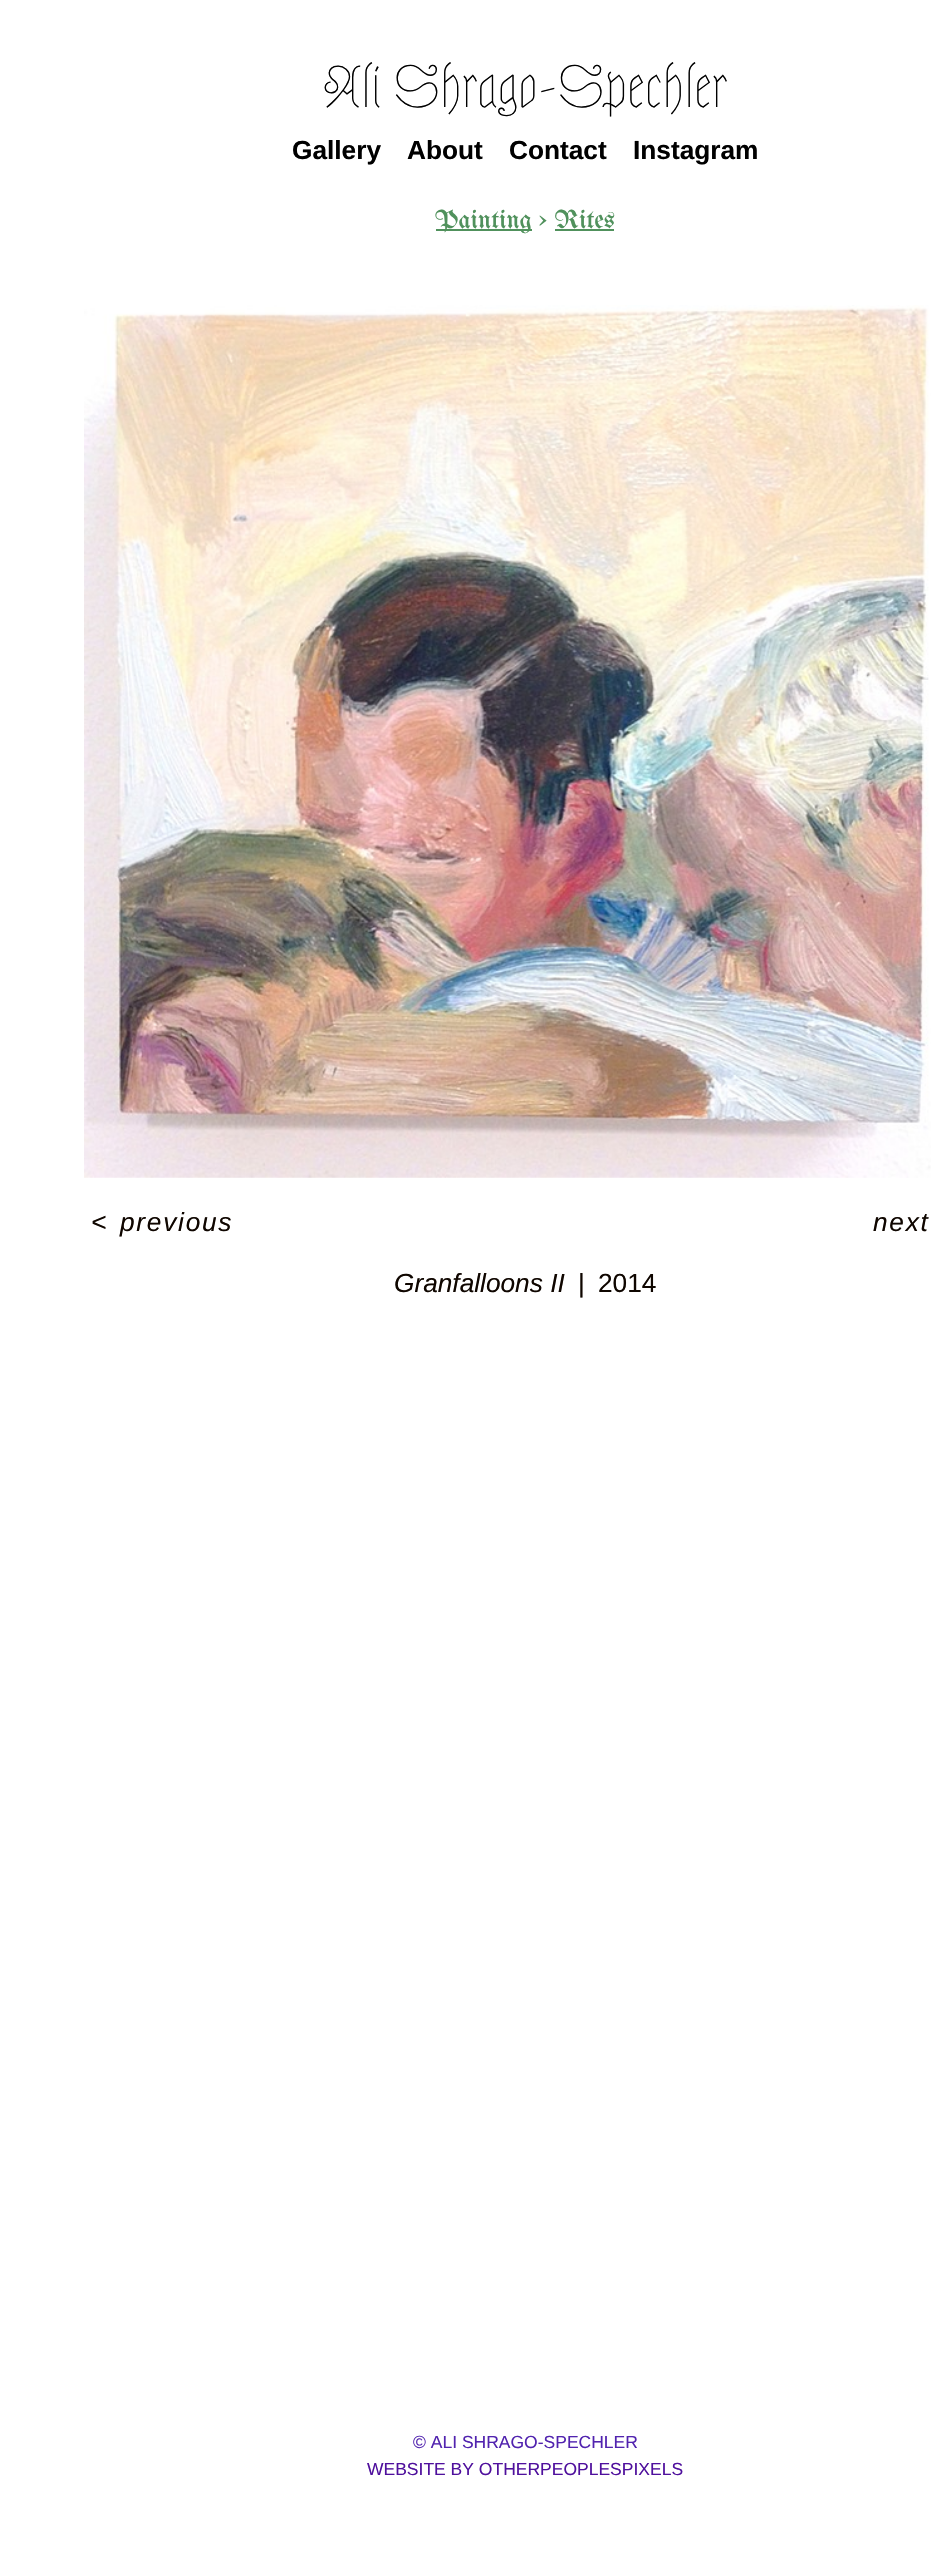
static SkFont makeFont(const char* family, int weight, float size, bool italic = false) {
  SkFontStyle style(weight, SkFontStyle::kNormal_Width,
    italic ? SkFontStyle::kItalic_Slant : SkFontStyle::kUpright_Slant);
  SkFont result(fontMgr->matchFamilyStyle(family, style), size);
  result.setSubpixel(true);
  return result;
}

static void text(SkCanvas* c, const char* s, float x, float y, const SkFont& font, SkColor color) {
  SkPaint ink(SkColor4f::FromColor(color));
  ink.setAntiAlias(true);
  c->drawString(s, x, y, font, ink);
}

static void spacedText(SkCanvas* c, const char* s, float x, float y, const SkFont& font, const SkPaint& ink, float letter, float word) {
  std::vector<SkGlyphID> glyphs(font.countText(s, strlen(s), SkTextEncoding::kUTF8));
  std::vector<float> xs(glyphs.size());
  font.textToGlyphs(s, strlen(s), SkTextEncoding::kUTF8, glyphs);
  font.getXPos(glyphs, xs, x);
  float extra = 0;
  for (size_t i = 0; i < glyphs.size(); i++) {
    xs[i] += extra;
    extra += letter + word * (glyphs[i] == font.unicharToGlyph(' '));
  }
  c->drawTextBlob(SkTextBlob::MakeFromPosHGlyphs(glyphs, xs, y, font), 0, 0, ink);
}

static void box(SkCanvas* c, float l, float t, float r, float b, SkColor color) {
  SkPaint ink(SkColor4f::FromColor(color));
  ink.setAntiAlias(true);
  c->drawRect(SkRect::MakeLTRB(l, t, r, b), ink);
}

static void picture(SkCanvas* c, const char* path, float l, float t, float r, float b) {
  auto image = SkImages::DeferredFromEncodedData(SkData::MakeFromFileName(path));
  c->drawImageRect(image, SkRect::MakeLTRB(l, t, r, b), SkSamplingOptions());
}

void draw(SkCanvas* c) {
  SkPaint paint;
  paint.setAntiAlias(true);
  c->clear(0xffffffff);
  SkFont face1 = makeFont("Astloch", 400, 54.25f);
  text(c, "Ali Shrago-Spechler", 323, 107, face1, 0xff000000);
  SkFont face2 = makeFont("Liberation Sans", 700, 26.25f);
  text(c, "Gallery", 292, 159, face2, 0xff000000);
  text(c, "About", 407, 159, face2, 0xff000000);
  text(c, "Contact", 509, 159, face2, 0xff000000);
  text(c, "Instagram", 633, 159, face2, 0xff000000);
  box(c, 436, 229, 532, 231, 0xff50915c);
  SkFont face3 = makeFont("UnifrakturMaguntia", 400, 26.25f);
  text(c, "Painting > Rites", 435, 228, face3, 0xff50915c);
  box(c, 555, 229, 614, 231, 0xff50915c);
  picture(c, "img_01.png", 84, 305, 931, 1178);
  SkFont face4 = makeFont("Liberation Sans", 400, 26.25f, true);
  paint.setColor(0xff0f0600);
  spacedText(c, "<", 91, 1231, face4, paint, 1.75f, 0);
  spacedText(c, "previous", 120, 1231, face4, paint, 1.75f, 0);
  spacedText(c, "next", 873, 1231, face4, paint, 1.75f, 0);
  text(c, "Granfalloons II", 394, 1292, face4, 0xff0f0600);
  SkFont face5 = makeFont("Liberation Sans", 400, 26.25f);
  text(c, "|", 578, 1292, face5, 0xff0f0600);
  text(c, "2014", 598, 1292, face5, 0xff0f0600);
  SkFont face6 = makeFont("Liberation Sans", 400, 17.5f);
  text(c, "© ALI SHRAGO-SPECHLER", 413, 2448, face6, 0xff5123af);
  text(c, "WEBSITE BY OTHERPEOPLESPIXELS", 367, 2475, face6, 0xff4f109d);
}
